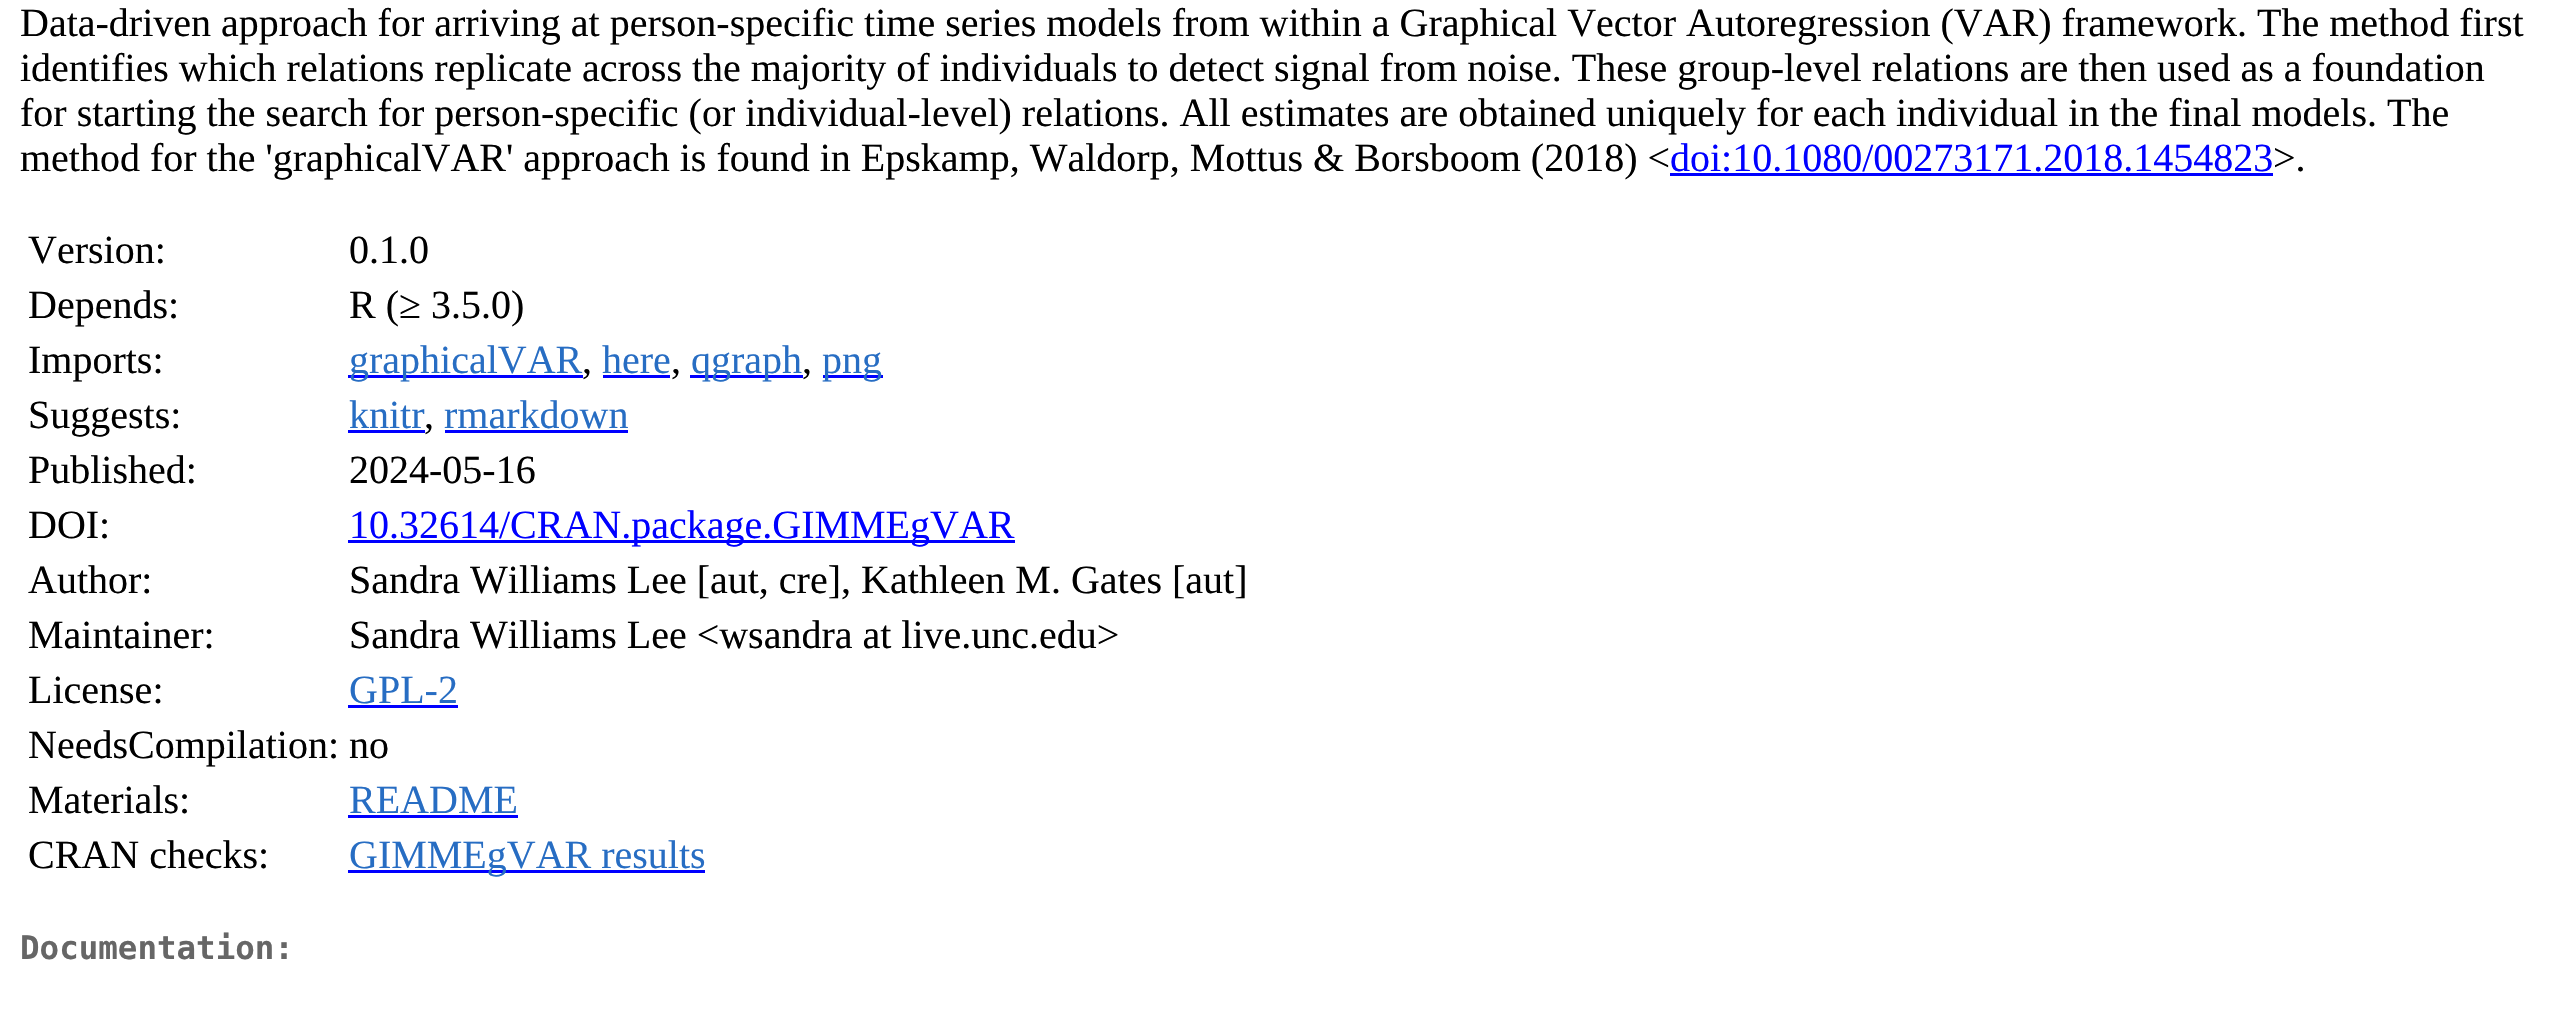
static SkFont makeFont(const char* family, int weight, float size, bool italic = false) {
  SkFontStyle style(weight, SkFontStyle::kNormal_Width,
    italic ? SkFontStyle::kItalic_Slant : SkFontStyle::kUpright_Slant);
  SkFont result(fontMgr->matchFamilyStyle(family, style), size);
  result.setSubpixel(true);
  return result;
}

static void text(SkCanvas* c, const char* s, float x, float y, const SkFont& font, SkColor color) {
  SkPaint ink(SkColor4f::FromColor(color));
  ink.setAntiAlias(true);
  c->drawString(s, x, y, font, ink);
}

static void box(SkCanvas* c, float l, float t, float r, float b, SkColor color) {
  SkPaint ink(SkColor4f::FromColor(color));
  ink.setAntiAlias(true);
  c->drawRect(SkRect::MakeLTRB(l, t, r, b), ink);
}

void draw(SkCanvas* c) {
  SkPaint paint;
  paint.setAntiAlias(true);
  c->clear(0xffffffff);
  SkFont face1 = makeFont("Liberation Serif", 400, 40);
  text(c, "Data-driven approach for arriving at person-specific time series models from within a Graphical Vector Autoregression (VAR) framework. The method first", 20, 36, face1, 0xff000000);
  text(c, "identifies which relations replicate across the majority of individuals to detect signal from noise. These group-level relations are then used as a foundation", 20, 81, face1, 0xff000000);
  text(c, "for starting the search for person-specific (or individual-level) relations. All estimates are obtained uniquely for each individual in the final models. The", 20, 126, face1, 0xff000000);
  text(c, "method for the 'graphicalVAR' approach is found in Epskamp, Waldorp, Mottus & Borsboom (2018) <", 20, 171, face1, 0xff000000);
  text(c, "doi:10.1080/00273171.2018.1454823", 1670, 171, face1, 0xff0000ff);
  box(c, 1670, 173, 2273, 176, 0xff0000ff);
  text(c, ">.", 2273, 171, face1, 0xff000000);
  text(c, "Version:", 28, 263, face1, 0xff000000);
  text(c, "0.1.0", 349, 263, face1, 0xff000000);
  text(c, "Depends:", 28, 318, face1, 0xff000000);
  text(c, "R (≥ 3.5.0)", 349, 318, face1, 0xff000000);
  text(c, "Imports:", 28, 373, face1, 0xff000000);
  box(c, 348, 375, 583, 378, 0xff0000ff);
  text(c, "graphicalVAR", 349, 373, face1, 0xff276dc3);
  text(c, ",", 582, 373, face1, 0xff000000);
  text(c, "here", 602, 373, face1, 0xff276dc3);
  box(c, 603, 375, 670, 378, 0xff0000ff);
  text(c, ",", 671, 373, face1, 0xff000000);
  box(c, 690, 375, 803, 378, 0xff0000ff);
  text(c, "qgraph", 691, 373, face1, 0xff276dc3);
  text(c, ",", 802, 373, face1, 0xff000000);
  box(c, 823, 375, 883, 378, 0xff0000ff);
  text(c, "png", 822, 373, face1, 0xff276dc3);
  text(c, "Suggests:", 28, 428, face1, 0xff000000);
  text(c, "knitr", 349, 428, face1, 0xff276dc3);
  box(c, 348, 430, 425, 433, 0xff0000ff);
  text(c, ",", 424, 428, face1, 0xff000000);
  text(c, "rmarkdown", 444, 428, face1, 0xff276dc3);
  box(c, 445, 430, 628, 433, 0xff0000ff);
  text(c, "Published:", 28, 483, face1, 0xff000000);
  text(c, "2024-05-16", 349, 483, face1, 0xff000000);
  text(c, "DOI:", 28, 538, face1, 0xff000000);
  box(c, 348, 540, 1015, 543, 0xff0000ff);
  text(c, "10.32614/CRAN.package.GIMMEgVAR", 349, 538, face1, 0xff0000ff);
  text(c, "Author:", 28, 593, face1, 0xff000000);
  text(c, "Sandra Williams Lee [aut, cre], Kathleen M. Gates [aut]", 349, 593, face1, 0xff000000);
  text(c, "Maintainer:", 28, 648, face1, 0xff000000);
  text(c, "Sandra Williams Lee <wsandra at live.unc.edu>", 349, 648, face1, 0xff000000);
  text(c, "License:", 28, 703, face1, 0xff000000);
  text(c, "GPL-2", 349, 703, face1, 0xff276dc3);
  box(c, 348, 705, 458, 708, 0xff0000ff);
  text(c, "NeedsCompilation: no", 28, 758, face1, 0xff000000);
  text(c, "Materials:", 28, 813, face1, 0xff000000);
  text(c, "README", 349, 813, face1, 0xff276dc3);
  box(c, 348, 815, 518, 818, 0xff0000ff);
  text(c, "CRAN checks:", 28, 868, face1, 0xff000000);
  box(c, 348, 870, 705, 873, 0xff0000ff);
  text(c, "GIMMEgVAR results", 349, 868, face1, 0xff276dc3);
  SkFont face2 = makeFont("DejaVu Sans Mono", 700, 32.5f);
  text(c, "Documentation:", 20, 959, face2, 0xff666666);
}
